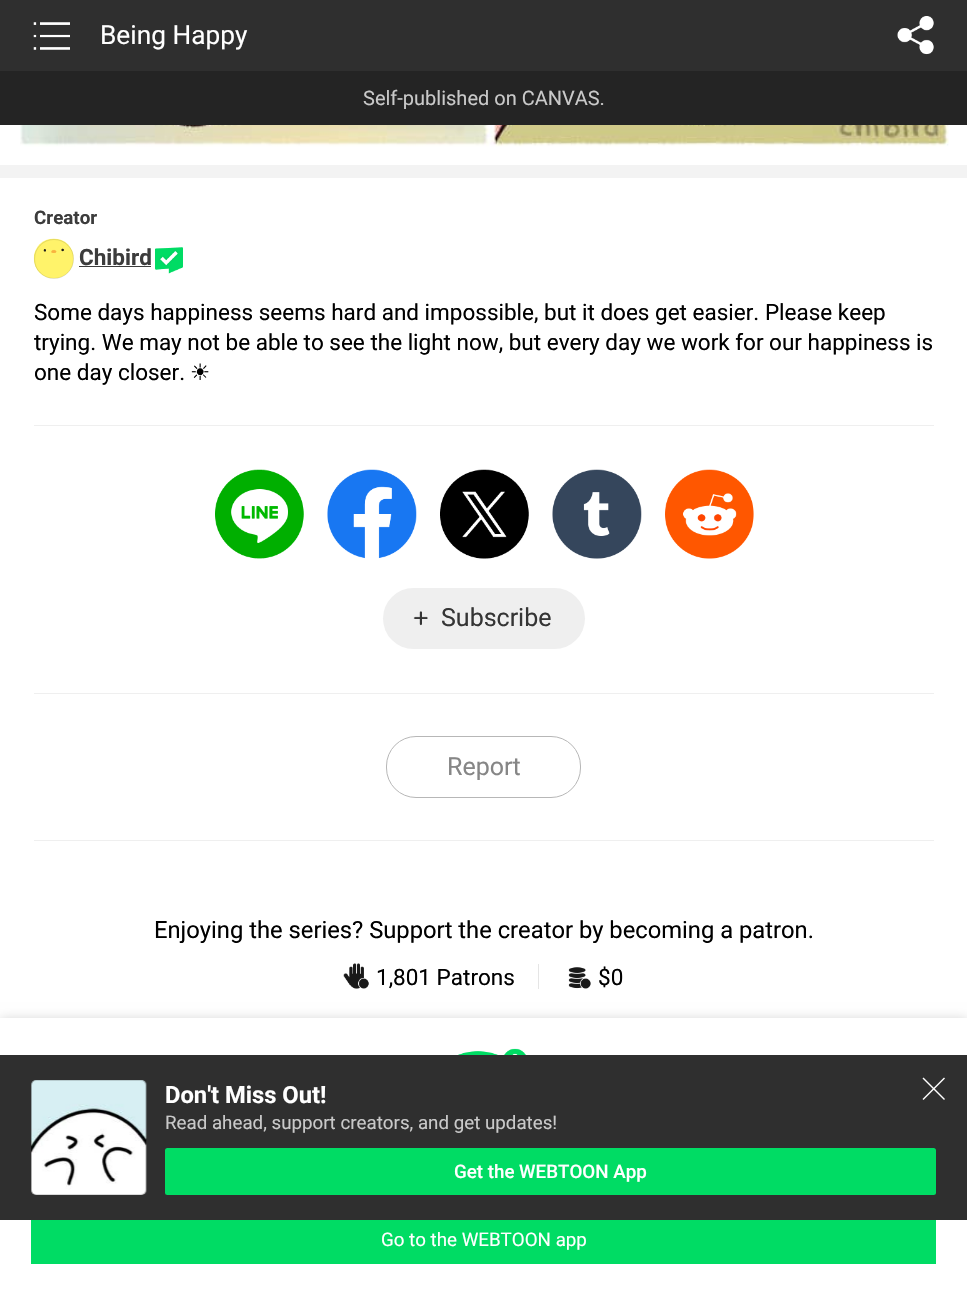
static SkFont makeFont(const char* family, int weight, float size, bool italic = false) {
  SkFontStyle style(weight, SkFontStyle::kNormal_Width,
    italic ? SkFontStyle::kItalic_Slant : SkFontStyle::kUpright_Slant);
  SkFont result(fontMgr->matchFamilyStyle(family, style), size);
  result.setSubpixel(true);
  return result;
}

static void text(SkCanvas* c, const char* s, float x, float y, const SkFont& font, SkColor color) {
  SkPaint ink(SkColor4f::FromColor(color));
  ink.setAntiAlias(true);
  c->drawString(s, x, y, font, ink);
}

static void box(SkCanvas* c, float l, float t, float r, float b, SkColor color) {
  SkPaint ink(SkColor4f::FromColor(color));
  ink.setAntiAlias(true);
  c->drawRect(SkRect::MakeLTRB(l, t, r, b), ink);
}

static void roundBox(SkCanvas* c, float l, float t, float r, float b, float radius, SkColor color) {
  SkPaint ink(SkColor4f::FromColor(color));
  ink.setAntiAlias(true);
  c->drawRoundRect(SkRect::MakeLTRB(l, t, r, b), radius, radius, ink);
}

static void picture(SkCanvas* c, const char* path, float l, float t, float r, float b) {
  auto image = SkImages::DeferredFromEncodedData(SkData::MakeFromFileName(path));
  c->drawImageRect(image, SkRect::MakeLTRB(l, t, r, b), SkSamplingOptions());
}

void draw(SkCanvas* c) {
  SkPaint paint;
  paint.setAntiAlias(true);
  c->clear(0xffffffff);
  box(c, 0, 0, 967, 71, 0xff2f2f2f);
  picture(c, "img_01.png", 33, 22, 70, 50);
  SkFont face1 = makeFont("Roboto", 400, 26.25f);
  text(c, "Being Happy", 100, 44, face1, 0xffffffff);
  picture(c, "img_02.png", 897, 16, 934, 55);
  box(c, 0, 71, 967, 125, 0xff242424);
  SkFont face2 = makeFont("Roboto", 400, 20);
  text(c, "Self-published on CANVAS.", 363, 105, face2, 0xffc9c9c9);
  picture(c, "img_03.png", 20, 125, 949, 147);
  box(c, 0, 165, 967, 178, 0xfff3f3f3);
  box(c, 34, 425, 934, 426, 0xffefefef);
  SkFont face3 = makeFont("Roboto", 700, 18.75f);
  text(c, "Creator", 34, 224, face3, 0xff3c3c3c);
  picture(c, "img_04.png", 33, 238, 74, 279);
  paint.setStyle(SkPaint::kStroke_Style);
  paint.setStrokeWidth(1);
  paint.setColor(0x1a000000);
  c->drawCircle(54, 259, 19.5f, paint);
  SkFont face4 = makeFont("Roboto", 700, 22.5f);
  text(c, "Chibird", 79, 265, face4, 0xff3c3c3c);
  box(c, 79, 266, 151, 267, 0xff3c3c3c);
  picture(c, "img_05.png", 155, 247, 183, 274);
  SkFont face5 = makeFont("Roboto", 400, 22.5f);
  text(c, "Some days happiness seems hard and impossible, but it does get easier. Please keep", 34, 320, face5, 0xff000000);
  text(c, "trying. We may not be able to see the light now, but every day we work for our happiness is", 34, 350, face5, 0xff000000);
  text(c, "one day closer.", 34, 380, face5, 0xff000000);
  SkFont face6 = makeFont("DejaVu Sans", 400, 22.5f);
  text(c, "☀", 190, 380, face6, 0xff000000);
  box(c, 34, 693, 934, 694, 0xffefefef);
  picture(c, "img_06.png", 215, 469, 304, 559);
  picture(c, "img_07.png", 327, 469, 417, 559);
  picture(c, "img_08.png", 440, 469, 529, 559);
  picture(c, "img_09.png", 552, 469, 642, 559);
  picture(c, "img_10.png", 665, 469, 754, 559);
  roundBox(c, 383, 588, 585, 649, 30.5f, 0xffefefef);
  picture(c, "img_11.png", 413, 611, 428, 626);
  SkFont face7 = makeFont("Roboto", 400, 25);
  text(c, "Subscribe", 441, 626, face7, 0xff353535);
  box(c, 34, 840, 934, 841, 0xffefefef);
  paint.setColor(0xffb7b7b7);
  c->drawRoundRect(SkRect::MakeLTRB(386.5f, 736.5f, 580.5f, 797.5f), 29.5f, 29.5f, paint);
  text(c, "Report", 447, 775, face7, 0xff868686);
  SkFont face8 = makeFont("Roboto", 400, 23.75f);
  text(c, "Enjoying the series? Support the creator by becoming a patron.", 154, 938, face8, 0xff000000);
  picture(c, "img_12.png", 343, 963, 369, 989);
  text(c, "1,801 Patrons", 376, 985, face5, 0xff000000);
  box(c, 538, 964, 539, 989, 0xffe5e5e5);
  picture(c, "img_13.png", 568, 967, 591, 989);
  text(c, "$0", 598, 985, face5, 0xff000000);
  paint.setStyle(SkPaint::kFill_Style);
  paint.setColor(0x33000000);
  paint.setMaskFilter(SkMaskFilter::MakeBlur(kNormal_SkBlurStyle, 6));
  c->drawRect(SkRect::MakeLTRB(0, 1020, 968, 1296), paint);
  paint.setMaskFilter(nullptr);
  box(c, 0, 1018, 967, 1293, 0xffffffff);
  box(c, 0, 1055, 967, 1220, 0xff2f2f2f);
  picture(c, "img_14.png", 31, 1080, 147, 1195);
  paint.setStyle(SkPaint::kStroke_Style);
  paint.setColor(0x26000000);
  c->drawRoundRect(SkRect::MakeLTRB(31.5f, 1080.5f, 145.5f, 1194.5f), 4.5f, 4.5f, paint);
  SkFont face9 = makeFont("Roboto", 700, 23.75f);
  text(c, "Don't Miss Out!", 165, 1103, face9, 0xffffffff);
  SkFont face10 = makeFont("Roboto", 400, 18.75f);
  text(c, "Read ahead, support creators, and get updates!", 165, 1129, face10, 0xffc9c9c9);
  roundBox(c, 165, 1148, 936, 1195, 2.5f, 0xff00dc64);
  SkFont face11 = makeFont("Roboto", 500, 18.75f);
  text(c, "Get the WEBTOON App", 454, 1178, face11, 0xffffffff);
  paint.setStyle(SkPaint::kFill_Style);
  paint.setColor(0xffffffff);
  c->drawPath(SkPathBuilder().moveTo(923.5f, 1077.5f).lineTo(945, 1099).lineTo(944, 1100).lineTo(922.5f, 1078.5f).close().detach(), paint);
  c->drawPath(SkPathBuilder().moveTo(945, 1078.5f).lineTo(923.5f, 1100).lineTo(922.5f, 1099).lineTo(944, 1077.5f).close().detach(), paint);
  picture(c, "img_15.png", 458, 1048, 528, 1055);
  box(c, 31, 1220, 936, 1264, 0xff00dc64);
  text(c, "Go to the WEBTOON app", 381, 1246, face10, 0xffffffff);
}
